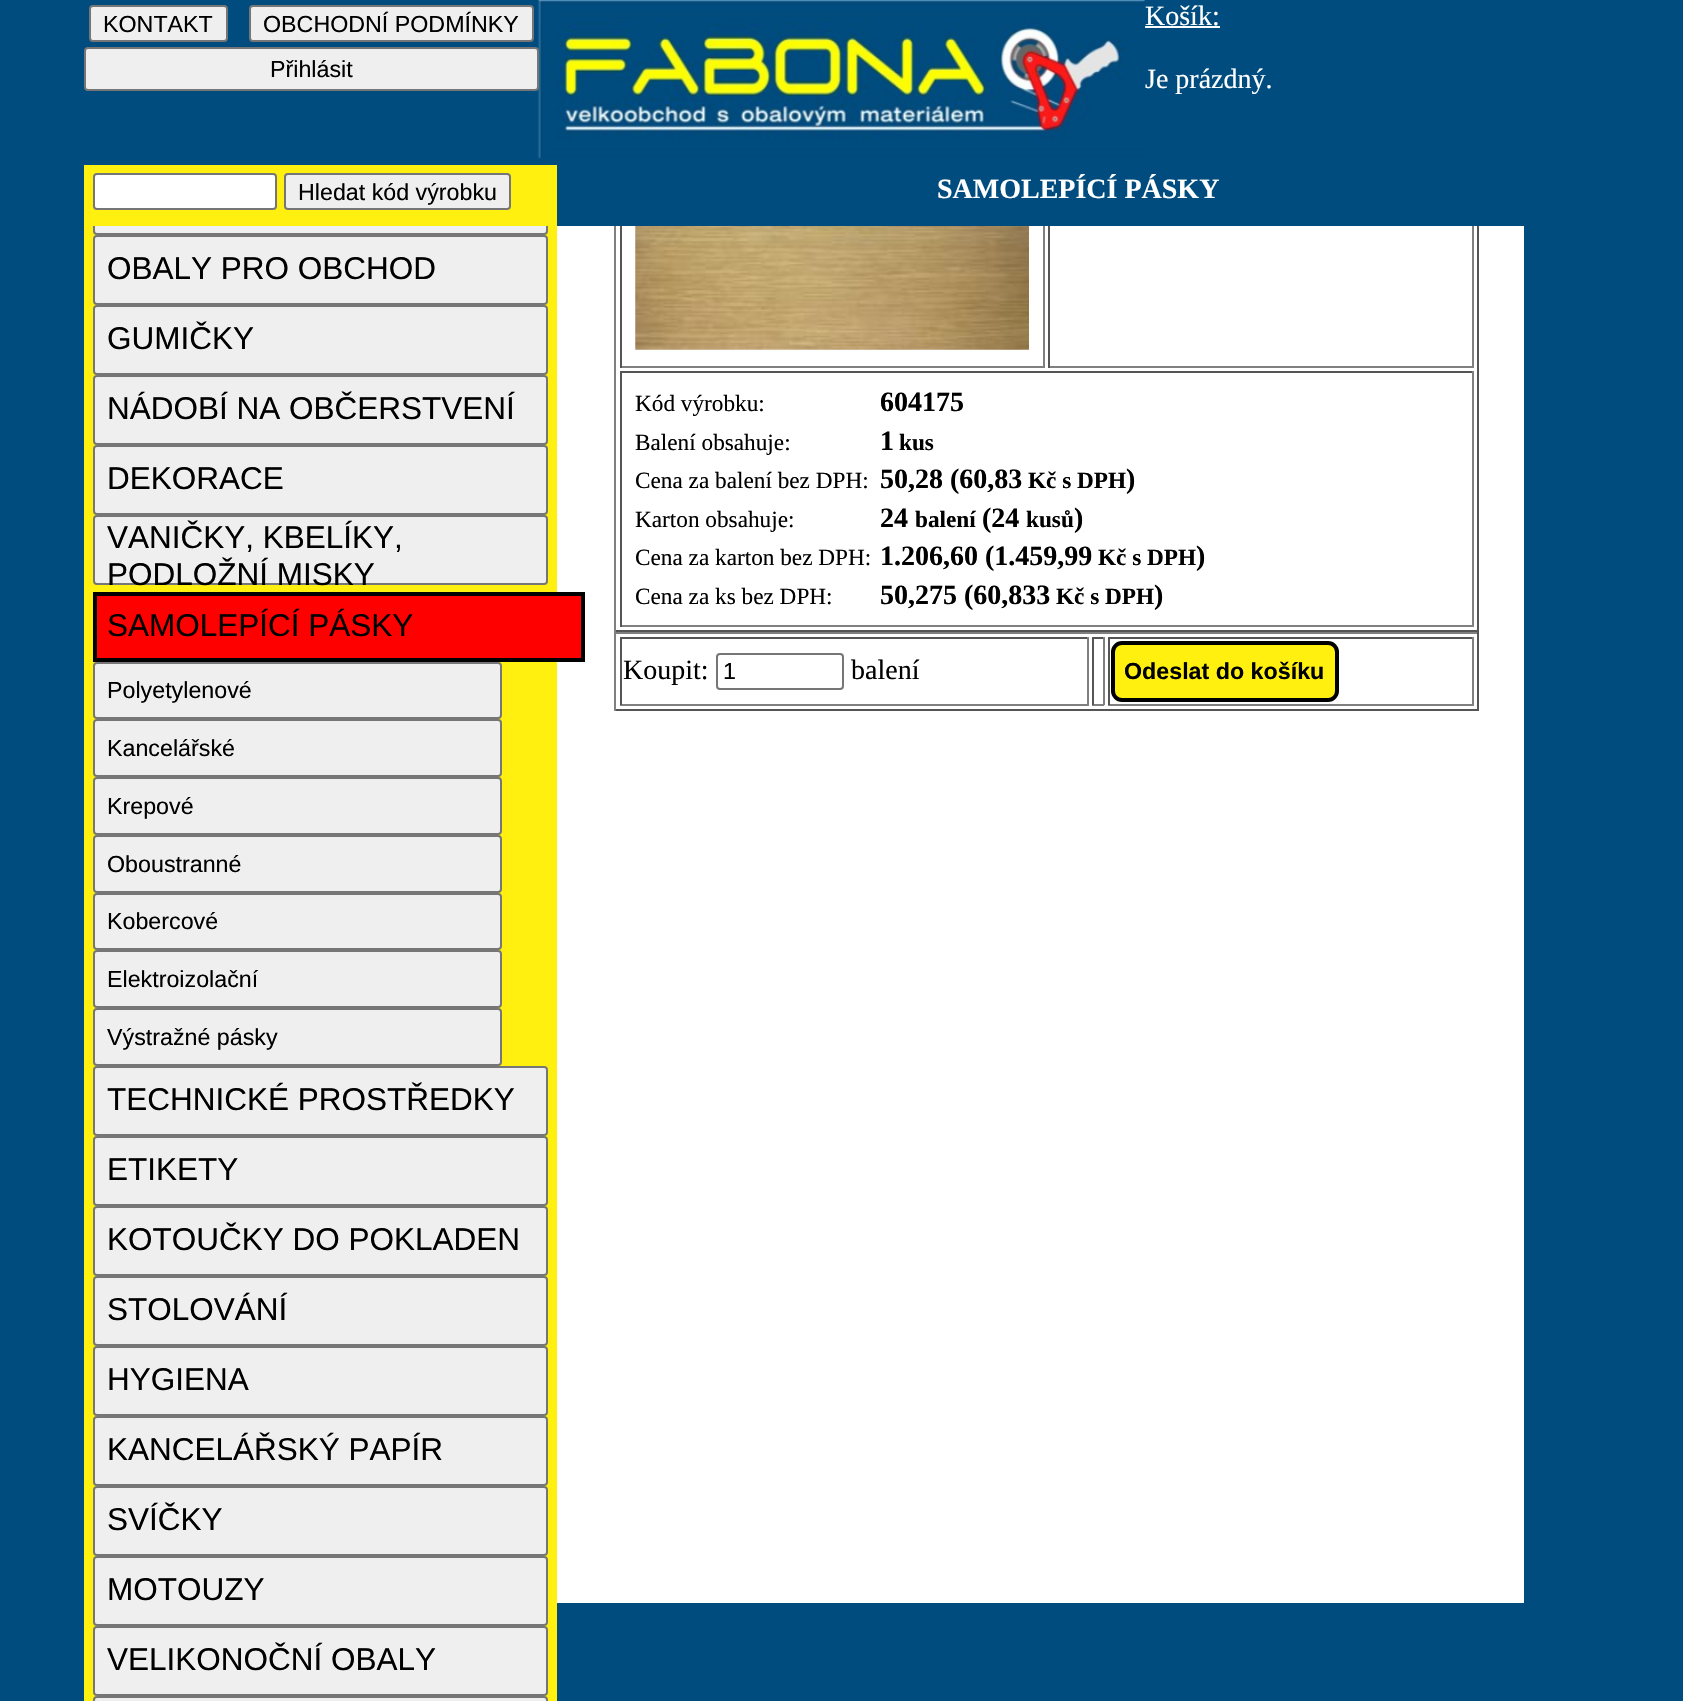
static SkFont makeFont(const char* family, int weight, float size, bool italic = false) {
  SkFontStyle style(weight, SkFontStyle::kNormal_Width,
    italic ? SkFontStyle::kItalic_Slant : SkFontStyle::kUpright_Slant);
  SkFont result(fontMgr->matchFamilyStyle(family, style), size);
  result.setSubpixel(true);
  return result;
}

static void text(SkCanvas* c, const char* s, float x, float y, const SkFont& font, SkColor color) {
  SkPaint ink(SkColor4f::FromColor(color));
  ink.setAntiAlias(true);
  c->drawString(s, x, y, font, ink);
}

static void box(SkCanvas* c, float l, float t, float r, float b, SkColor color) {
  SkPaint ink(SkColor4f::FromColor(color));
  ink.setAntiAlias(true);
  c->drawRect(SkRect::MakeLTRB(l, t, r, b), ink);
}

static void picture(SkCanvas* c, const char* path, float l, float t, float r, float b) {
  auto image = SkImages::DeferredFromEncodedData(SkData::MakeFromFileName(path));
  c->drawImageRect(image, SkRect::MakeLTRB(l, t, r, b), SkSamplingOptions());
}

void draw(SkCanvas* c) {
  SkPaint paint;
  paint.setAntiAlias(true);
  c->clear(0xff004c7e);
  paint.setColor(0xffefefef);
  c->drawRoundRect(SkRect::MakeLTRB(90, 6, 227, 41), 3, 3, paint);
  paint.setStyle(SkPaint::kStroke_Style);
  paint.setStrokeWidth(2);
  paint.setColor(0xff767676);
  c->drawRoundRect(SkRect::MakeLTRB(90, 6, 227, 41), 3, 3, paint);
  SkFont face1 = makeFont("Liberation Sans", 400, 23.25f);
  text(c, "KONTAKT", 103, 32, face1, 0xff000000);
  paint.setStyle(SkPaint::kFill_Style);
  paint.setColor(0xffefefef);
  c->drawRoundRect(SkRect::MakeLTRB(250, 6, 533, 41), 3, 3, paint);
  paint.setStyle(SkPaint::kStroke_Style);
  paint.setColor(0xff767676);
  c->drawRoundRect(SkRect::MakeLTRB(250, 6, 533, 41), 3, 3, paint);
  text(c, "OBCHODNÍ PODMÍNKY", 263, 32, face1, 0xff000000);
  SkFont face2 = makeFont("Liberation Serif", 400, 28);
  text(c, "Košík:", 1145, 25, face2, 0xffffffff);
  box(c, 1145, 26, 1220, 28, 0xffffffff);
  text(c, "Je prázdný.", 1145, 88, face2, 0xffffffff);
  picture(c, "img_01.png", 538, 0, 1146, 158);
  paint.setStyle(SkPaint::kFill_Style);
  paint.setColor(0xffefefef);
  c->drawRoundRect(SkRect::MakeLTRB(85, 48, 538, 90), 3, 3, paint);
  paint.setStyle(SkPaint::kStroke_Style);
  paint.setColor(0xff767676);
  c->drawRoundRect(SkRect::MakeLTRB(85, 48, 538, 90), 3, 3, paint);
  text(c, "Přihlásit", 270, 77, face1, 0xff000000);
  box(c, 84, 226, 557, 1701, 0xfffff00f);
  paint.setStyle(SkPaint::kFill_Style);
  paint.setColor(0xffefefef);
  c->drawRoundRect(SkRect::MakeLTRB(94, 166, 547, 234), 3, 3, paint);
  paint.setStyle(SkPaint::kStroke_Style);
  paint.setColor(0xff767676);
  c->drawRoundRect(SkRect::MakeLTRB(94, 166, 547, 234), 3, 3, paint);
  box(c, 84, 165, 557, 226, 0xfffff00f);
  paint.setStyle(SkPaint::kFill_Style);
  paint.setColor(0xffffffff);
  c->drawRoundRect(SkRect::MakeLTRB(94, 174, 276, 209), 3, 3, paint);
  paint.setStyle(SkPaint::kStroke_Style);
  paint.setColor(0xff767676);
  c->drawRoundRect(SkRect::MakeLTRB(94, 174, 276, 209), 3, 3, paint);
  paint.setStyle(SkPaint::kFill_Style);
  paint.setColor(0xffefefef);
  c->drawRoundRect(SkRect::MakeLTRB(285, 174, 510, 209), 3, 3, paint);
  paint.setStyle(SkPaint::kStroke_Style);
  paint.setColor(0xff767676);
  c->drawRoundRect(SkRect::MakeLTRB(285, 174, 510, 209), 3, 3, paint);
  text(c, "Hledat kód výrobku", 298, 200, face1, 0xff000000);
  SkFont face3 = makeFont("Liberation Serif", 700, 28);
  text(c, "SAMOLEPÍCÍ PÁSKY", 937, 198, face3, 0xffffffff);
  paint.setStyle(SkPaint::kFill_Style);
  paint.setColor(0xffefefef);
  c->drawRoundRect(SkRect::MakeLTRB(94, 236, 547, 304), 3, 3, paint);
  paint.setStyle(SkPaint::kStroke_Style);
  paint.setColor(0xff767676);
  c->drawRoundRect(SkRect::MakeLTRB(94, 236, 547, 304), 3, 3, paint);
  SkFont face4 = makeFont("Liberation Sans", 400, 31.5f);
  text(c, "OBALY PRO OBCHOD", 107, 279, face4, 0xff000000);
  paint.setStyle(SkPaint::kFill_Style);
  paint.setColor(0xffefefef);
  c->drawRoundRect(SkRect::MakeLTRB(94, 306, 547, 374), 3, 3, paint);
  paint.setStyle(SkPaint::kStroke_Style);
  paint.setColor(0xff767676);
  c->drawRoundRect(SkRect::MakeLTRB(94, 306, 547, 374), 3, 3, paint);
  text(c, "GUMIČKY", 107, 349, face4, 0xff000000);
  paint.setStyle(SkPaint::kFill_Style);
  paint.setColor(0xffefefef);
  c->drawRoundRect(SkRect::MakeLTRB(94, 376, 547, 444), 3, 3, paint);
  paint.setStyle(SkPaint::kStroke_Style);
  paint.setColor(0xff767676);
  c->drawRoundRect(SkRect::MakeLTRB(94, 376, 547, 444), 3, 3, paint);
  text(c, "NÁDOBÍ NA OBČERSTVENÍ", 107, 419, face4, 0xff000000);
  paint.setStyle(SkPaint::kFill_Style);
  paint.setColor(0xffefefef);
  c->drawRoundRect(SkRect::MakeLTRB(94, 446, 547, 514), 3, 3, paint);
  paint.setStyle(SkPaint::kStroke_Style);
  paint.setColor(0xff767676);
  c->drawRoundRect(SkRect::MakeLTRB(94, 446, 547, 514), 3, 3, paint);
  text(c, "DEKORACE", 107, 489, face4, 0xff000000);
  paint.setStyle(SkPaint::kFill_Style);
  paint.setColor(0xffefefef);
  c->drawRoundRect(SkRect::MakeLTRB(94, 516, 547, 584), 3, 3, paint);
  paint.setStyle(SkPaint::kStroke_Style);
  paint.setColor(0xff767676);
  c->drawRoundRect(SkRect::MakeLTRB(94, 516, 547, 584), 3, 3, paint);
  text(c, "VANIČKY, KBELÍKY,", 107, 548, face4, 0xff000000);
  text(c, "PODLOŽNÍ MISKY", 107, 585, face4, 0xff000000);
  box(c, 557, 226, 1524, 1603, 0xffffffff);
  paint.setStyle(SkPaint::kFill_Style);
  paint.setColor(0xffff0000);
  c->drawRect(SkRect::MakeLTRB(95, 594, 583, 660), paint);
  paint.setStyle(SkPaint::kStroke_Style);
  paint.setStrokeWidth(4);
  paint.setColor(0xff000000);
  c->drawRect(SkRect::MakeLTRB(95, 594, 583, 660), paint);
  text(c, "SAMOLEPÍCÍ PÁSKY", 107, 636, face4, 0xff000000);
  paint.setStyle(SkPaint::kFill_Style);
  paint.setColor(0xffefefef);
  c->drawRoundRect(SkRect::MakeLTRB(94, 663, 501, 718), 3, 3, paint);
  paint.setStyle(SkPaint::kStroke_Style);
  paint.setStrokeWidth(2);
  paint.setColor(0xff767676);
  c->drawRoundRect(SkRect::MakeLTRB(94, 663, 501, 718), 3, 3, paint);
  text(c, "Polyetylenové", 107, 698, face1, 0xff000000);
  paint.setStyle(SkPaint::kFill_Style);
  paint.setColor(0xffefefef);
  c->drawRoundRect(SkRect::MakeLTRB(94, 720, 501, 776), 3, 3, paint);
  paint.setStyle(SkPaint::kStroke_Style);
  paint.setColor(0xff767676);
  c->drawRoundRect(SkRect::MakeLTRB(94, 720, 501, 776), 3, 3, paint);
  text(c, "Kancelářské", 107, 756, face1, 0xff000000);
  paint.setStyle(SkPaint::kFill_Style);
  paint.setColor(0xffefefef);
  c->drawRoundRect(SkRect::MakeLTRB(94, 778, 501, 834), 3, 3, paint);
  paint.setStyle(SkPaint::kStroke_Style);
  paint.setColor(0xff767676);
  c->drawRoundRect(SkRect::MakeLTRB(94, 778, 501, 834), 3, 3, paint);
  text(c, "Krepové", 107, 814, face1, 0xff000000);
  paint.setStyle(SkPaint::kFill_Style);
  paint.setColor(0xffefefef);
  c->drawRoundRect(SkRect::MakeLTRB(94, 836, 501, 892), 3, 3, paint);
  paint.setStyle(SkPaint::kStroke_Style);
  paint.setColor(0xff767676);
  c->drawRoundRect(SkRect::MakeLTRB(94, 836, 501, 892), 3, 3, paint);
  text(c, "Oboustranné", 107, 872, face1, 0xff000000);
  paint.setStyle(SkPaint::kFill_Style);
  paint.setColor(0xffefefef);
  c->drawRoundRect(SkRect::MakeLTRB(94, 894, 501, 949), 3, 3, paint);
  paint.setStyle(SkPaint::kStroke_Style);
  paint.setColor(0xff767676);
  c->drawRoundRect(SkRect::MakeLTRB(94, 894, 501, 949), 3, 3, paint);
  text(c, "Kobercové", 107, 929, face1, 0xff000000);
  paint.setStyle(SkPaint::kFill_Style);
  paint.setColor(0xffefefef);
  c->drawRoundRect(SkRect::MakeLTRB(94, 951, 501, 1007), 3, 3, paint);
  paint.setStyle(SkPaint::kStroke_Style);
  paint.setColor(0xff767676);
  c->drawRoundRect(SkRect::MakeLTRB(94, 951, 501, 1007), 3, 3, paint);
  text(c, "Elektroizolační", 107, 987, face1, 0xff000000);
  paint.setStyle(SkPaint::kFill_Style);
  paint.setColor(0xffefefef);
  c->drawRoundRect(SkRect::MakeLTRB(94, 1009, 501, 1065), 3, 3, paint);
  paint.setStyle(SkPaint::kStroke_Style);
  paint.setColor(0xff767676);
  c->drawRoundRect(SkRect::MakeLTRB(94, 1009, 501, 1065), 3, 3, paint);
  text(c, "Výstražné pásky", 107, 1045, face1, 0xff000000);
  paint.setStyle(SkPaint::kFill_Style);
  paint.setColor(0xffefefef);
  c->drawRoundRect(SkRect::MakeLTRB(94, 1067, 547, 1135), 3, 3, paint);
  paint.setStyle(SkPaint::kStroke_Style);
  paint.setColor(0xff767676);
  c->drawRoundRect(SkRect::MakeLTRB(94, 1067, 547, 1135), 3, 3, paint);
  text(c, "TECHNICKÉ PROSTŘEDKY", 107, 1110, face4, 0xff000000);
  paint.setStyle(SkPaint::kFill_Style);
  paint.setColor(0xffefefef);
  c->drawRoundRect(SkRect::MakeLTRB(94, 1137, 547, 1205), 3, 3, paint);
  paint.setStyle(SkPaint::kStroke_Style);
  paint.setColor(0xff767676);
  c->drawRoundRect(SkRect::MakeLTRB(94, 1137, 547, 1205), 3, 3, paint);
  text(c, "ETIKETY", 107, 1180, face4, 0xff000000);
  paint.setStyle(SkPaint::kFill_Style);
  paint.setColor(0xffefefef);
  c->drawRoundRect(SkRect::MakeLTRB(94, 1207, 547, 1275), 3, 3, paint);
  paint.setStyle(SkPaint::kStroke_Style);
  paint.setColor(0xff767676);
  c->drawRoundRect(SkRect::MakeLTRB(94, 1207, 547, 1275), 3, 3, paint);
  text(c, "KOTOUČKY DO POKLADEN", 107, 1250, face4, 0xff000000);
  paint.setStyle(SkPaint::kFill_Style);
  paint.setColor(0xffefefef);
  c->drawRoundRect(SkRect::MakeLTRB(94, 1277, 547, 1345), 3, 3, paint);
  paint.setStyle(SkPaint::kStroke_Style);
  paint.setColor(0xff767676);
  c->drawRoundRect(SkRect::MakeLTRB(94, 1277, 547, 1345), 3, 3, paint);
  text(c, "STOLOVÁNÍ", 107, 1320, face4, 0xff000000);
  paint.setStyle(SkPaint::kFill_Style);
  paint.setColor(0xffefefef);
  c->drawRoundRect(SkRect::MakeLTRB(94, 1347, 547, 1415), 3, 3, paint);
  paint.setStyle(SkPaint::kStroke_Style);
  paint.setColor(0xff767676);
  c->drawRoundRect(SkRect::MakeLTRB(94, 1347, 547, 1415), 3, 3, paint);
  text(c, "HYGIENA", 107, 1390, face4, 0xff000000);
  paint.setStyle(SkPaint::kFill_Style);
  paint.setColor(0xffefefef);
  c->drawRoundRect(SkRect::MakeLTRB(94, 1417, 547, 1485), 3, 3, paint);
  paint.setStyle(SkPaint::kStroke_Style);
  paint.setColor(0xff767676);
  c->drawRoundRect(SkRect::MakeLTRB(94, 1417, 547, 1485), 3, 3, paint);
  text(c, "KANCELÁŘSKÝ PAPÍR", 107, 1460, face4, 0xff000000);
  paint.setStyle(SkPaint::kFill_Style);
  paint.setColor(0xffefefef);
  c->drawRoundRect(SkRect::MakeLTRB(94, 1487, 547, 1555), 3, 3, paint);
  paint.setStyle(SkPaint::kStroke_Style);
  paint.setColor(0xff767676);
  c->drawRoundRect(SkRect::MakeLTRB(94, 1487, 547, 1555), 3, 3, paint);
  text(c, "SVÍČKY", 107, 1530, face4, 0xff000000);
  paint.setStyle(SkPaint::kFill_Style);
  paint.setColor(0xffefefef);
  c->drawRoundRect(SkRect::MakeLTRB(94, 1557, 547, 1625), 3, 3, paint);
  paint.setStyle(SkPaint::kStroke_Style);
  paint.setColor(0xff767676);
  c->drawRoundRect(SkRect::MakeLTRB(94, 1557, 547, 1625), 3, 3, paint);
  text(c, "MOTOUZY", 107, 1600, face4, 0xff000000);
  paint.setStyle(SkPaint::kFill_Style);
  paint.setColor(0xffefefef);
  c->drawRoundRect(SkRect::MakeLTRB(94, 1627, 547, 1695), 3, 3, paint);
  paint.setStyle(SkPaint::kStroke_Style);
  paint.setColor(0xff767676);
  c->drawRoundRect(SkRect::MakeLTRB(94, 1627, 547, 1695), 3, 3, paint);
  text(c, "VELIKONOČNÍ OBALY", 107, 1670, face4, 0xff000000);
  paint.setStyle(SkPaint::kFill_Style);
  paint.setColor(0xffefefef);
  c->drawRoundRect(SkRect::MakeLTRB(94, 1697, 547, 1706), 3, 3, paint);
  paint.setStyle(SkPaint::kStroke_Style);
  paint.setColor(0xff767676);
  c->drawRoundRect(SkRect::MakeLTRB(94, 1697, 547, 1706), 3, 3, paint);
  box(c, 1477, 226, 1479, 632, 0xff555555);
  box(c, 614, 630, 1479, 632, 0xff555555);
  box(c, 614, 226, 616, 632, 0xff808080);
  box(c, 1043, 226, 1045, 368, 0xff808080);
  box(c, 620, 366, 1045, 368, 0xff808080);
  box(c, 620, 226, 622, 368, 0xff555555);
  picture(c, "img_02.png", 635, 226, 1029, 350);
  box(c, 1472, 226, 1474, 368, 0xff808080);
  box(c, 1048, 366, 1474, 368, 0xff808080);
  box(c, 1048, 226, 1050, 368, 0xff555555);
  box(c, 620, 371, 1474, 373, 0xff555555);
  box(c, 1472, 371, 1474, 627, 0xff808080);
  box(c, 620, 625, 1474, 627, 0xff808080);
  box(c, 620, 371, 622, 627, 0xff555555);
  SkFont face5 = makeFont("Liberation Serif", 400, 23.25f);
  text(c, "Kód výrobku:", 635, 411, face5, 0xff000000);
  text(c, "604175", 880, 411, face3, 0xff000000);
  text(c, "Balení obsahuje:", 635, 450, face5, 0xff000000);
  text(c, "1", 880, 450, face3, 0xff000000);
  SkFont face6 = makeFont("Liberation Serif", 700, 23.25f);
  text(c, "kus", 899, 450, face6, 0xff000000);
  text(c, "Cena za balení bez DPH:", 635, 488, face5, 0xff000000);
  text(c, "50,28 (60,83", 880, 488, face3, 0xff000000);
  text(c, "Kč s DPH", 1028, 488, face6, 0xff000000);
  text(c, ")", 1126, 488, face3, 0xff000000);
  text(c, "Karton obsahuje:", 635, 527, face5, 0xff000000);
  text(c, "24", 880, 527, face3, 0xff000000);
  text(c, "balení", 915, 527, face6, 0xff000000);
  text(c, "(24", 982, 527, face3, 0xff000000);
  text(c, "kusů", 1026, 527, face6, 0xff000000);
  text(c, ")", 1074, 527, face3, 0xff000000);
  text(c, "Cena za karton bez DPH:", 635, 565, face5, 0xff000000);
  text(c, "1.206,60 (1.459,99", 880, 565, face3, 0xff000000);
  text(c, "Kč s DPH", 1098, 565, face6, 0xff000000);
  text(c, ")", 1196, 565, face3, 0xff000000);
  text(c, "Cena za ks bez DPH:", 635, 604, face5, 0xff000000);
  text(c, "50,275 (60,833", 880, 604, face3, 0xff000000);
  text(c, "Kč s DPH", 1056, 604, face6, 0xff000000);
  text(c, ")", 1154, 604, face3, 0xff000000);
  box(c, 614, 632, 1479, 634, 0xff808080);
  box(c, 1477, 632, 1479, 711, 0xff555555);
  box(c, 614, 709, 1479, 711, 0xff555555);
  box(c, 614, 632, 616, 711, 0xff808080);
  box(c, 620, 637, 1089, 639, 0xff555555);
  box(c, 1087, 637, 1089, 705, 0xff808080);
  box(c, 620, 704, 1089, 706, 0xff808080);
  box(c, 620, 637, 622, 705, 0xff555555);
  text(c, "Koupit:", 623, 679, face2, 0xff000000);
  c->drawRoundRect(SkRect::MakeLTRB(717, 654, 843, 689), 3, 3, paint);
  text(c, "1", 723, 679, face1, 0xff000000);
  text(c, "balení", 851, 679, face2, 0xff000000);
  box(c, 1092, 637, 1104, 639, 0xff555555);
  box(c, 1103, 637, 1105, 705, 0xff808080);
  box(c, 1092, 704, 1104, 706, 0xff808080);
  box(c, 1092, 637, 1094, 705, 0xff555555);
  box(c, 1108, 637, 1474, 639, 0xff555555);
  box(c, 1472, 637, 1474, 705, 0xff808080);
  box(c, 1108, 704, 1474, 706, 0xff808080);
  box(c, 1108, 637, 1110, 705, 0xff555555);
  paint.setStyle(SkPaint::kFill_Style);
  paint.setColor(0xfffff00f);
  c->drawRoundRect(SkRect::MakeLTRB(1113, 643, 1337, 700), 9, 9, paint);
  paint.setStyle(SkPaint::kStroke_Style);
  paint.setStrokeWidth(4);
  paint.setColor(0xff000000);
  c->drawRoundRect(SkRect::MakeLTRB(1113, 643, 1337, 700), 9, 9, paint);
  SkFont face7 = makeFont("Liberation Sans", 700, 23.25f);
  text(c, "Odeslat do košíku", 1124, 679, face7, 0xff000000);
}
